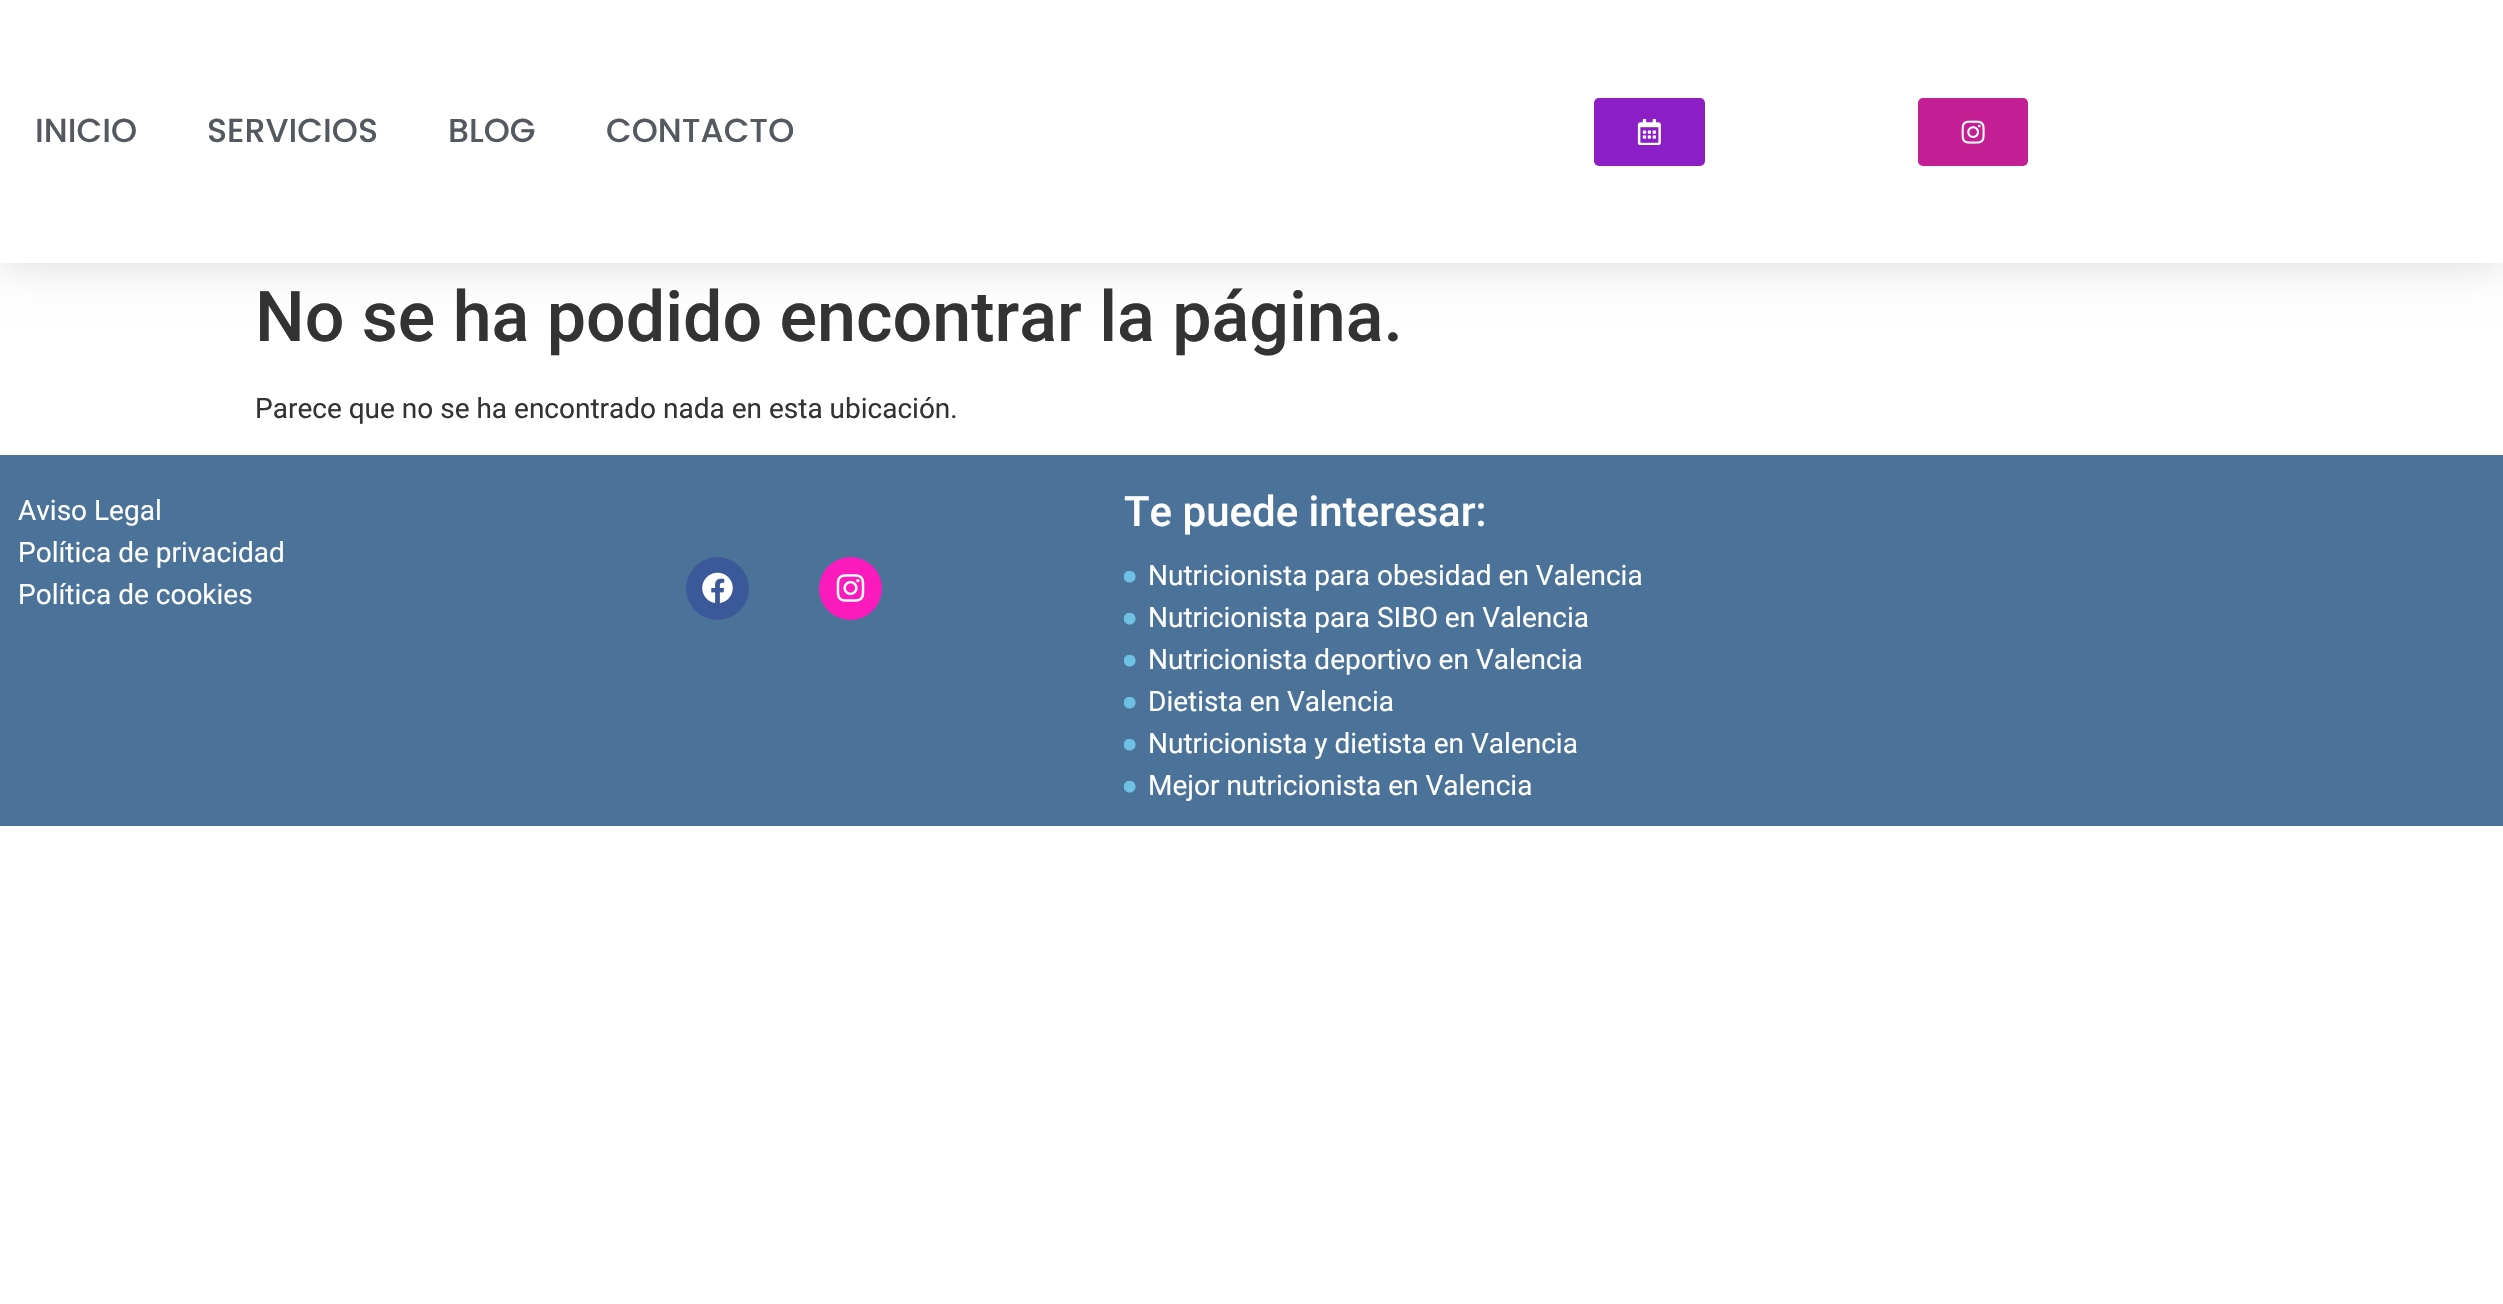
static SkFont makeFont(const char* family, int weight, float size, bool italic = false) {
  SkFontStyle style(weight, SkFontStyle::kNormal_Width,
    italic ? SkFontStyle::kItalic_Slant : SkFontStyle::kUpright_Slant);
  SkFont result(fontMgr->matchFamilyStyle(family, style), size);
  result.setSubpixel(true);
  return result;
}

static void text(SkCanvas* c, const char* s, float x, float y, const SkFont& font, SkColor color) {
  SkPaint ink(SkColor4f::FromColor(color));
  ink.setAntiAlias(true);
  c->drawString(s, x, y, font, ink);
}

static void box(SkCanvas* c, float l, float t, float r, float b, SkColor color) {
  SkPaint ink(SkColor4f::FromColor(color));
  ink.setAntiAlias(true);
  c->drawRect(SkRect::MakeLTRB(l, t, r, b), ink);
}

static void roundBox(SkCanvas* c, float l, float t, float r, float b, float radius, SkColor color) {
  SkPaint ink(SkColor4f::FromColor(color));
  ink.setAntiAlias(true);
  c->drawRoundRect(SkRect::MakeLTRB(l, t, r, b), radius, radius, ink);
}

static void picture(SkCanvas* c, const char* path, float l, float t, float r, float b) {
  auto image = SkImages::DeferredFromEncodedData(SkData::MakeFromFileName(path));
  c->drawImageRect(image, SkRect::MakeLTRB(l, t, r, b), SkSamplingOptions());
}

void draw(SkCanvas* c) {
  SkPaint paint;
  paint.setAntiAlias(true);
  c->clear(0xffffffff);
  c->save();
  c->clipPath(SkPathBuilder(SkPathFillType::kEvenOdd).moveTo(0, 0).lineTo(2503, 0).lineTo(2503, 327).lineTo(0, 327).close().moveTo(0, 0).lineTo(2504, 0).lineTo(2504, 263).lineTo(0, 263).close().detach(), true);
  paint.setColor(0x26000000);
  paint.setMaskFilter(SkMaskFilter::MakeBlur(kNormal_SkBlurStyle, 21));
  c->drawRect(SkRect::MakeLTRB(0, 0, 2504, 263), paint);
  paint.setMaskFilter(nullptr);
  c->restore();
  SkFont face1 = makeFont("Poppins", 500, 33.25f);
  text(c, "INICIO", 35, 142, face1, 0xff54595f);
  text(c, "SERVICIOS", 207, 142, face1, 0xff54595f);
  text(c, "BLOG", 448, 142, face1, 0xff54595f);
  text(c, "CONTACTO", 606, 142, face1, 0xff54595f);
  roundBox(c, 1594, 98, 1705, 166, 5, 0xff8b1ec4);
  picture(c, "img_01.png", 1637, 119, 1661, 145);
  roundBox(c, 1918, 98, 2028, 166, 5, 0xffc41e95);
  picture(c, "img_02.png", 1961, 120, 1985, 144);
  SkFont face2 = makeFont("Roboto", 500, 70);
  text(c, "No se ha podido encontrar la página.", 255, 341, face2, 0xff333333);
  SkFont face3 = makeFont("Roboto", 400, 28);
  text(c, "Parece que no se ha encontrado nada en esta ubicación.", 255, 418, face3, 0xff333333);
  box(c, 0, 455, 2503, 826, 0xff4b7299);
  text(c, "Aviso Legal", 18, 520, face3, 0xffffffff);
  text(c, "Política de privacidad", 18, 562, face3, 0xffffffff);
  text(c, "Política de cookies", 18, 604, face3, 0xffffffff);
  paint.setColor(0xff3b5998);
  c->drawCircle(717.5f, 588.5f, 31.5f, paint);
  picture(c, "img_03.png", 702, 572, 733, 603);
  paint.setColor(0xfffb1abb);
  c->drawCircle(850.5f, 588.5f, 31.5f, paint);
  picture(c, "img_04.png", 836, 574, 865, 602);
  SkFont face4 = makeFont("Roboto", 500, 42);
  text(c, "Te puede interesar:", 1124, 526, face4, 0xffffffff);
  picture(c, "img_05.png", 1124, 571, 1136, 583);
  text(c, "Nutricionista para obesidad en Valencia", 1148, 585, face3, 0xffffffff);
  picture(c, "img_05.png", 1124, 613, 1136, 625);
  text(c, "Nutricionista para SIBO en Valencia", 1148, 627, face3, 0xffffffff);
  picture(c, "img_05.png", 1124, 655, 1136, 667);
  text(c, "Nutricionista deportivo en Valencia", 1148, 669, face3, 0xffffffff);
  picture(c, "img_05.png", 1124, 697, 1136, 709);
  text(c, "Dietista en Valencia", 1148, 711, face3, 0xffffffff);
  picture(c, "img_05.png", 1124, 739, 1136, 751);
  text(c, "Nutricionista y dietista en Valencia", 1148, 753, face3, 0xffffffff);
  picture(c, "img_05.png", 1124, 781, 1136, 793);
  text(c, "Mejor nutricionista en Valencia", 1148, 795, face3, 0xffffffff);
}
